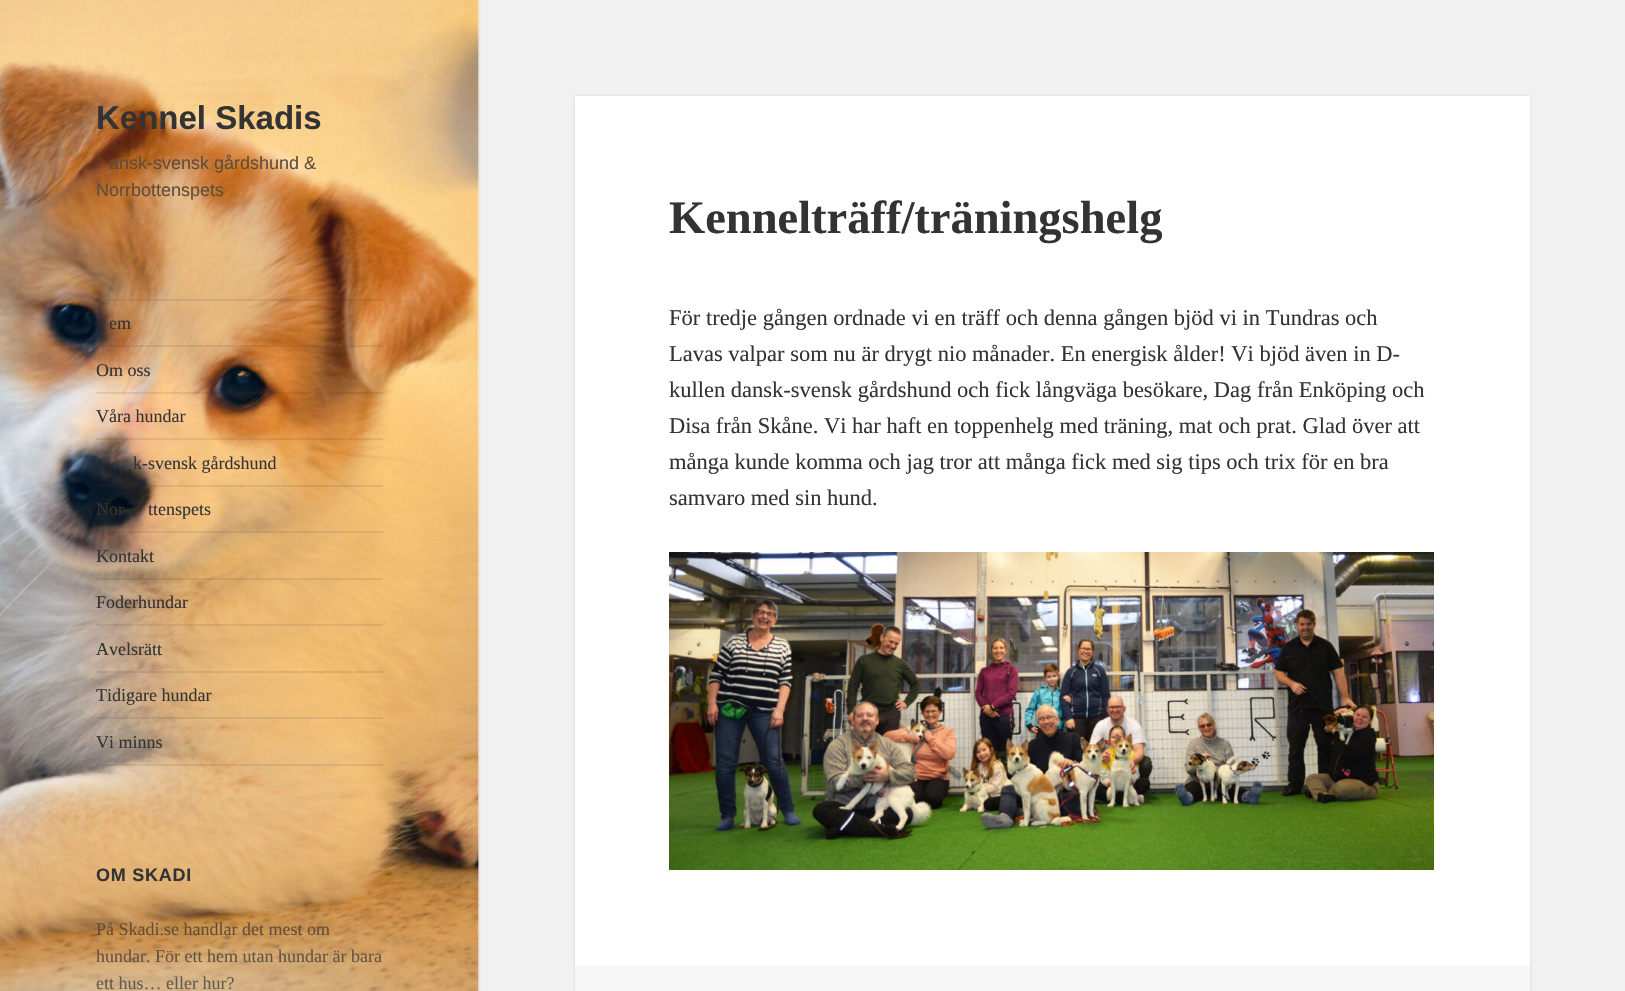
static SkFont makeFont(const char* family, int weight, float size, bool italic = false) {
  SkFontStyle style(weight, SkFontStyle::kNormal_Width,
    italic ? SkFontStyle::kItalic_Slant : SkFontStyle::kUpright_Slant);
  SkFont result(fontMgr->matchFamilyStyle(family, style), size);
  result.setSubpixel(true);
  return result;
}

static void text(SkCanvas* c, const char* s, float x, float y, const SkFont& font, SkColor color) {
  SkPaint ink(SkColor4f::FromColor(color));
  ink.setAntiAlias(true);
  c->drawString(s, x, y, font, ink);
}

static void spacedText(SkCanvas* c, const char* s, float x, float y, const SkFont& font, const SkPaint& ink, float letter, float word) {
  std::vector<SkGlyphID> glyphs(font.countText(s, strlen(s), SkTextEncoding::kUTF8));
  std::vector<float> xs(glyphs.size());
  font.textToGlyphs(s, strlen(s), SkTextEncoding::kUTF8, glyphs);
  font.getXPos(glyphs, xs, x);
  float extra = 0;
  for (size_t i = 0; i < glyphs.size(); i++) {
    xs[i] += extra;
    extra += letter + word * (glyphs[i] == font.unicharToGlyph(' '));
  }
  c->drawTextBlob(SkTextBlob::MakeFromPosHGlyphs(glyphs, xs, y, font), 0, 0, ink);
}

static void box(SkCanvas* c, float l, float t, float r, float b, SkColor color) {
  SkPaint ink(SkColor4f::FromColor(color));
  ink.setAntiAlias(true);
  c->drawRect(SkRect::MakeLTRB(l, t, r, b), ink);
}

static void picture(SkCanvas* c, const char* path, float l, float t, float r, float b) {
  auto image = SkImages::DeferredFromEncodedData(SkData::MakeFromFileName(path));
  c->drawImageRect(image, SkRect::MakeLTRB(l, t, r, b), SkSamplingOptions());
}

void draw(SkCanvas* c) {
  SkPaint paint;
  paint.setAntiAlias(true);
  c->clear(0xfff1f1f1);
  paint.setColor(0x26000000);
  paint.setMaskFilter(SkMaskFilter::MakeBlur(kNormal_SkBlurStyle, 1));
  c->drawRect(SkRect::MakeLTRB(0, 0, 479, 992), paint);
  paint.setMaskFilter(nullptr);
  box(c, 478, 0, 479, 991, 0xffffffff);
  picture(c, "img_01.png", 0, 0, 479, 991);
  SkFont face1 = makeFont("Liberation Sans", 700, 33);
  text(c, "Kennel Skadis", 96, 129, face1, 0xff333333);
  SkFont face2 = makeFont("Liberation Sans", 400, 18);
  text(c, "ansk-svensk gårdshund &", 109, 169, face2, 0xff5f4e3b);
  text(c, "Norrbottenspets", 96, 196, face2, 0xff5f4e3b);
  box(c, 96, 299, 383, 301, 0x1a333333);
  box(c, 96, 764, 383, 766, 0x1a333333);
  SkFont face3 = makeFont("Liberation Serif", 400, 18);
  text(c, "em", 109, 329, face3, 0xff333333);
  box(c, 96, 345, 383, 347, 0x1a333333);
  text(c, "Om oss", 96, 376, face3, 0xff333333);
  box(c, 96, 392, 383, 394, 0x1a333333);
  text(c, "Våra hundar", 96, 422, face3, 0xff333333);
  box(c, 96, 438, 383, 440, 0x1a333333);
  text(c, "k-svensk gårdshund", 133, 469, face3, 0xff333333);
  box(c, 96, 485, 383, 487, 0x1a333333);
  text(c, "Nor", 96, 515, face3, 0xff333333);
  text(c, "ttenspets", 148, 515, face3, 0xff333333);
  box(c, 96, 531, 383, 533, 0x1a333333);
  text(c, "Kontakt", 96, 562, face3, 0xff333333);
  box(c, 96, 578, 383, 580, 0x1a333333);
  text(c, "Foderhundar", 96, 608, face3, 0xff333333);
  box(c, 96, 624, 383, 626, 0x1a333333);
  text(c, "Avelsrätt", 96, 655, face3, 0xff333333);
  box(c, 96, 671, 383, 673, 0x1a333333);
  text(c, "Tidigare hundar", 96, 701, face3, 0xff333333);
  box(c, 96, 717, 383, 719, 0x1a333333);
  text(c, "Vi minns", 96, 748, face3, 0xff333333);
  SkFont face4 = makeFont("Liberation Sans", 700, 18);
  paint.setColor(0xff333333);
  spacedText(c, "OM SKADI", 96, 881, face4, paint, 0.75f, 0);
  text(c, "På Skadi.se handlar det mest om", 96, 935, face3, 0xff5f4e3b);
  text(c, "hundar. För ett hem utan hundar är bara", 96, 962, face3, 0xff625544);
  text(c, "ett hus… eller hur?", 96, 989, face3, 0xff635a4d);
  paint.setColor(0x26000000);
  paint.setMaskFilter(SkMaskFilter::MakeBlur(kNormal_SkBlurStyle, 1));
  c->drawRect(SkRect::MakeLTRB(575, 96, 1530, 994), paint);
  paint.setMaskFilter(nullptr);
  box(c, 575, 96, 1530, 965, 0xffffffff);
  SkFont face5 = makeFont("Liberation Serif", 700, 46.5f);
  text(c, "Kennelträff/träningshelg", 669, 233, face5, 0xff333333);
  SkFont face6 = makeFont("Liberation Serif", 400, 22.5f);
  text(c, "För tredje gången ordnade vi en träff och denna gången bjöd vi in Tundras och", 669, 325, face6, 0xff333333);
  text(c, "Lavas valpar som nu är drygt nio månader. En energisk ålder! Vi bjöd även in D-", 669, 361, face6, 0xff333333);
  text(c, "kullen dansk-svensk gårdshund och fick långväga besökare, Dag från Enköping och", 669, 397, face6, 0xff333333);
  text(c, "Disa från Skåne. Vi har haft en toppenhelg med träning, mat och prat. Glad över att", 669, 433, face6, 0xff333333);
  text(c, "många kunde komma och jag tror att många fick med sig tips och trix för en bra", 669, 469, face6, 0xff333333);
  text(c, "samvaro med sin hund.", 669, 505, face6, 0xff333333);
  picture(c, "img_02.png", 669, 552, 1434, 870);
  box(c, 575, 965, 1530, 991, 0xfff7f7f7);
}
